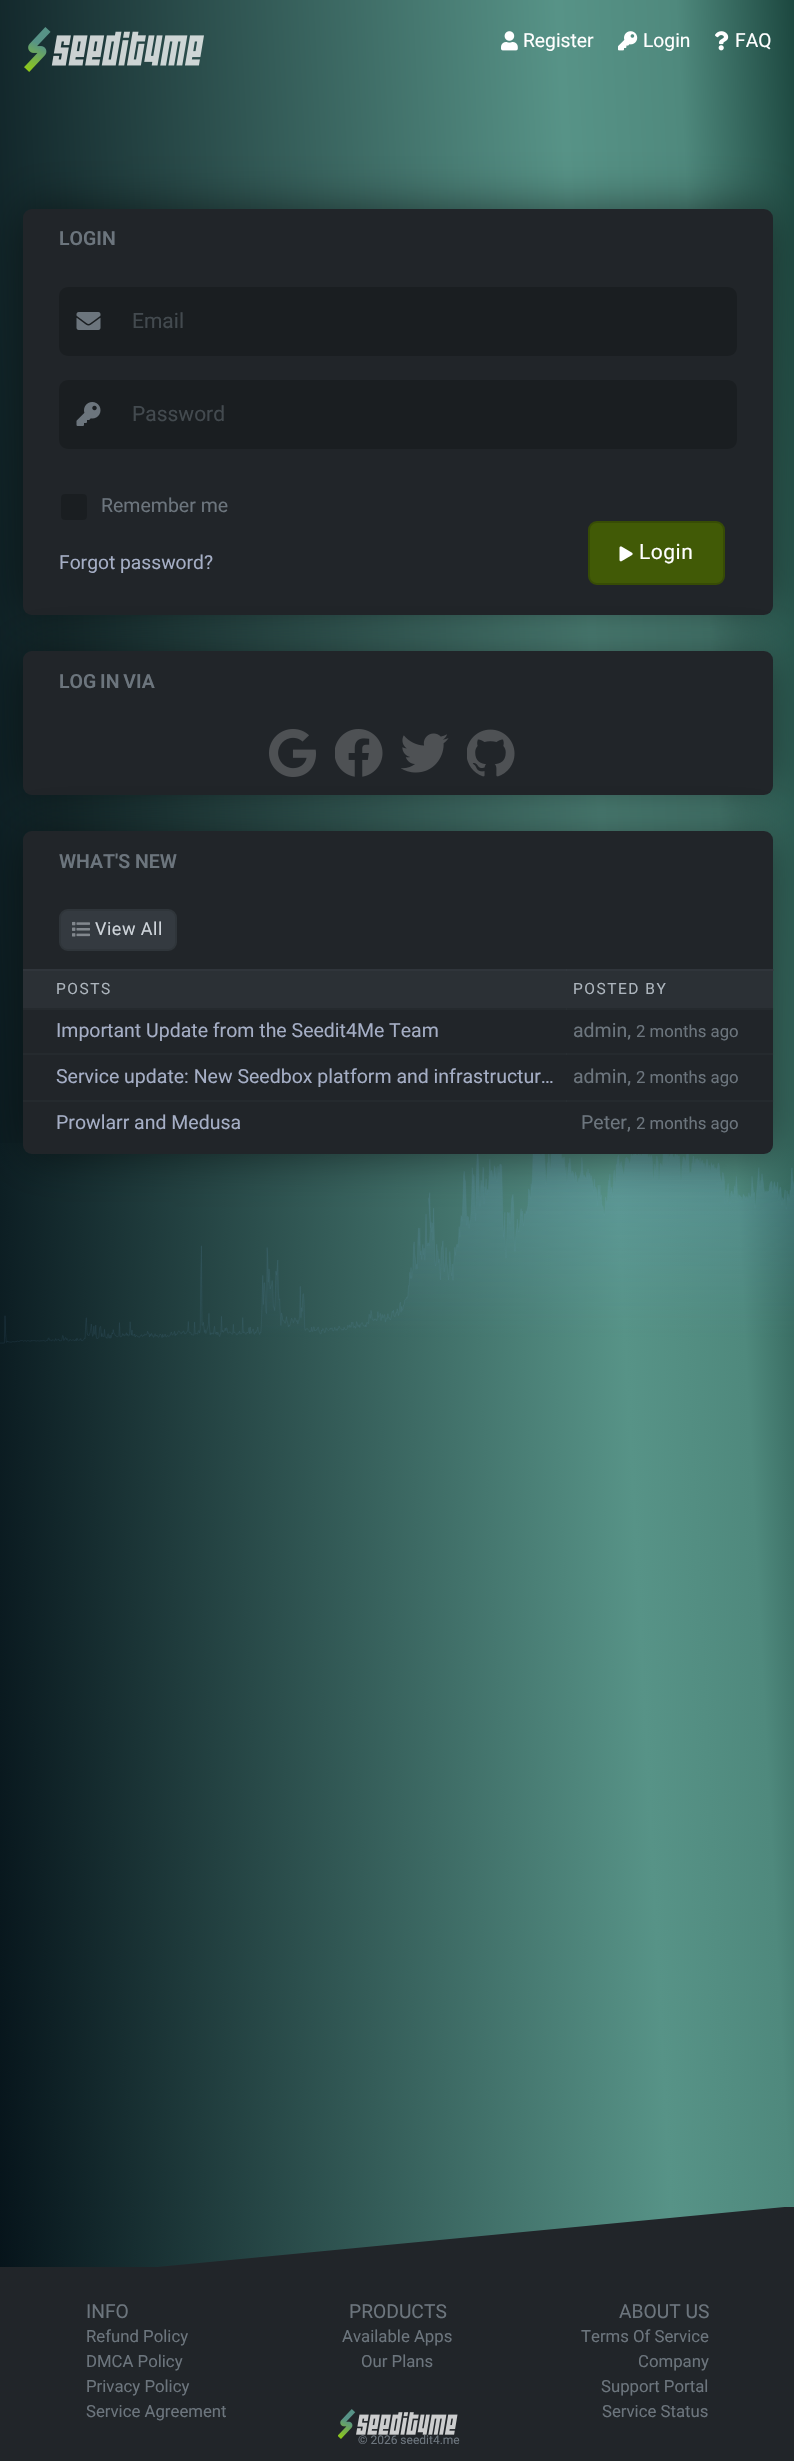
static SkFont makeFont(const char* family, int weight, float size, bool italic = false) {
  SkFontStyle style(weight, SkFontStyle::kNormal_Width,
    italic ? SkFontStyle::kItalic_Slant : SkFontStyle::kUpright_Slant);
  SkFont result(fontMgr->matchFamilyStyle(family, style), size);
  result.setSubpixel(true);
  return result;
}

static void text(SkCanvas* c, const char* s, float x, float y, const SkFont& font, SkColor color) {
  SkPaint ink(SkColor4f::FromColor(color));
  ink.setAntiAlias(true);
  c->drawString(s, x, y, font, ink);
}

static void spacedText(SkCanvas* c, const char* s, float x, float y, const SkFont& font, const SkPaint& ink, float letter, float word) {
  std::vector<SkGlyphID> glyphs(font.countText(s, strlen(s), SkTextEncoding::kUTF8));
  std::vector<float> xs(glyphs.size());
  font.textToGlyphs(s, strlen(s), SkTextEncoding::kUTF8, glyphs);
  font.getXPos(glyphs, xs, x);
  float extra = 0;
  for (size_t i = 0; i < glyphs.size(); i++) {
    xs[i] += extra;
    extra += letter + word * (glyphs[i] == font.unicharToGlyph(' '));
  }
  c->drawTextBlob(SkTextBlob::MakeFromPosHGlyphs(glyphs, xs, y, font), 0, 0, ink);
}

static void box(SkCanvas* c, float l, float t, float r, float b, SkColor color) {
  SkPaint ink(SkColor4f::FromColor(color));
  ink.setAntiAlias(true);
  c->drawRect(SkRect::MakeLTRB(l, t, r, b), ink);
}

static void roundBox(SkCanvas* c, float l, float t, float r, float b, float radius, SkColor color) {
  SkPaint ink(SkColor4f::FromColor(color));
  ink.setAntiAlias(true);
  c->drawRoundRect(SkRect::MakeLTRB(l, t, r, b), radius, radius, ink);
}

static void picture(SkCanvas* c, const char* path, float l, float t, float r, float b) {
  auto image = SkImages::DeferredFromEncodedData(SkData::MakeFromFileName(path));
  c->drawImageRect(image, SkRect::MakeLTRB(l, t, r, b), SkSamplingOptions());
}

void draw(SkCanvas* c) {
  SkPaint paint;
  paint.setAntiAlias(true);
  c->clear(0xffffffff);
  {
    const SkColor colors[] = {0xff051219, 0xff579387, 0xff4f897d, 0xff1c473f};
    const float stops[] = {0, 0.74f, 0.87f, 1};
    const SkPoint ends[] = {{-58, 1157}, {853, 1109}};
    paint.setShader(SkGradientShader::MakeLinear(ends, colors, stops, 4, SkTileMode::kClamp));
    paint.setAlpha(255);
  }
  c->drawRect(SkRect::MakeLTRB(0, 0, 794, 1143), paint);
  picture(c, "img_01.png", 24, 27, 204, 72);
  picture(c, "img_02.png", 501, 31, 518, 51);
  SkFont face1 = makeFont("Roboto", 400, 19.25f);
  text(c, "Register", 523, 47, face1, 0xffffffff);
  picture(c, "img_03.png", 618, 31, 638, 51);
  text(c, "Login", 643, 47, face1, 0xffffffff);
  picture(c, "img_04.png", 715, 31, 729, 51);
  text(c, "FAQ", 735, 47, face1, 0xffffffff);
  paint.setShader(nullptr);
  paint.setColor(0x8c000000);
  paint.setMaskFilter(SkMaskFilter::MakeBlur(kNormal_SkBlurStyle, 24));
  c->drawRoundRect(SkRect::MakeLTRB(23, 209, 773, 615), 9, 9, paint);
  paint.setMaskFilter(nullptr);
  roundBox(c, 23, 209, 773, 615, 9, 0xff212529);
  SkFont face2 = makeFont("Roboto", 600, 19.5f);
  text(c, "LOGIN", 59, 245, face2, 0xff6c757d);
  paint.setColor(0xff1a1e21);
  c->drawPath(SkPathBuilder().moveTo(68, 287).lineTo(119, 287).lineTo(119, 356).lineTo(68, 356).cubicTo(63, 356, 59, 352, 59, 347).lineTo(59, 296).cubicTo(59, 291, 63, 287, 68, 287).close().detach(), paint);
  picture(c, "img_05.png", 76, 312, 101, 330);
  c->drawPath(SkPathBuilder().moveTo(117, 287).lineTo(728, 287).cubicTo(733, 287, 737, 291, 737, 296).lineTo(737, 347).cubicTo(737, 352, 733, 356, 728, 356).lineTo(117, 356).close().detach(), paint);
  SkFont face3 = makeFont("Roboto", 400, 21);
  text(c, "Email", 132, 328, face3, 0xff434a4f);
  c->drawPath(SkPathBuilder().moveTo(68, 380).lineTo(119, 380).lineTo(119, 449).lineTo(68, 449).cubicTo(63, 449, 59, 445, 59, 440).lineTo(59, 389).cubicTo(59, 384, 63, 380, 68, 380).close().detach(), paint);
  picture(c, "img_06.png", 76, 402, 101, 426);
  c->drawPath(SkPathBuilder().moveTo(117, 380).lineTo(728, 380).cubicTo(733, 380, 737, 384, 737, 389).lineTo(737, 440).cubicTo(737, 445, 733, 449, 728, 449).lineTo(117, 449).close().detach(), paint);
  text(c, "Password", 132, 421, face3, 0xff434a4f);
  c->drawRoundRect(SkRect::MakeLTRB(60, 493, 88, 521), 5, 5, paint);
  paint.setStyle(SkPaint::kStroke_Style);
  paint.setStrokeWidth(2);
  paint.setColor(0xff212529);
  c->drawRoundRect(SkRect::MakeLTRB(60, 493, 88, 521), 5, 5, paint);
  SkFont face4 = makeFont("Roboto", 400, 19.5f);
  text(c, "Remember me", 101, 512, face4, 0xff6c757d);
  text(c, "Forgot password?", 59, 569, face1, 0xffa5aec5);
  paint.setStyle(SkPaint::kFill_Style);
  paint.setColor(0xff415a06);
  c->drawRoundRect(SkRect::MakeLTRB(589, 522, 724, 584), 8, 8, paint);
  paint.setStyle(SkPaint::kStroke_Style);
  paint.setColor(0xff374c05);
  c->drawRoundRect(SkRect::MakeLTRB(589, 522, 724, 584), 8, 8, paint);
  picture(c, "img_07.png", 619, 546, 633, 562);
  paint.setStyle(SkPaint::kFill_Style);
  paint.setColor(0xffffffff);
  spacedText(c, "Login", 639, 559, face3, paint, 0.5f, 0);
  paint.setColor(0x8c000000);
  paint.setMaskFilter(SkMaskFilter::MakeBlur(kNormal_SkBlurStyle, 24));
  c->drawRoundRect(SkRect::MakeLTRB(23, 651, 773, 795), 9, 9, paint);
  paint.setMaskFilter(nullptr);
  roundBox(c, 23, 651, 773, 795, 9, 0xff212529);
  paint.setColor(0xff6c757d);
  spacedText(c, "LOG IN VIA", 59, 688, face2, paint, 0, -1);
  picture(c, "img_08.png", 269, 729, 316, 777);
  picture(c, "img_09.png", 335, 729, 383, 777);
  picture(c, "img_10.png", 401, 733, 449, 773);
  picture(c, "img_11.png", 467, 729, 515, 777);
  picture(c, "img_13.png", 0, 1143, 794, 2267);
  paint.setColor(0x8c000000);
  paint.setMaskFilter(SkMaskFilter::MakeBlur(kNormal_SkBlurStyle, 24));
  c->drawRoundRect(SkRect::MakeLTRB(23, 831, 773, 1154), 9, 9, paint);
  paint.setMaskFilter(nullptr);
  roundBox(c, 23, 831, 773, 1154, 9, 0xff212529);
  text(c, "WHAT'S NEW", 59, 868, face2, 0xff6c757d);
  paint.setColor(0xff343a40);
  c->drawRoundRect(SkRect::MakeLTRB(60, 910, 176, 950), 8, 8, paint);
  paint.setStyle(SkPaint::kStroke_Style);
  paint.setColor(0xff2f353a);
  c->drawRoundRect(SkRect::MakeLTRB(60, 910, 176, 950), 8, 8, paint);
  picture(c, "img_12.png", 72, 921, 90, 937);
  SkFont face5 = makeFont("Roboto", 400, 18);
  paint.setStyle(SkPaint::kFill_Style);
  paint.setColor(0xffced4da);
  spacedText(c, "View All", 95, 935, face5, paint, 0.5f, 0);
  box(c, 23, 969, 773, 1008, 0xff2b3035);
  box(c, 566, 969, 774, 971, 0x80343a40);
  box(c, 23, 969, 567, 971, 0x80343a40);
  SkFont face6 = makeFont("Roboto", 400, 15.5f);
  paint.setColor(0xffadb5bd);
  spacedText(c, "POSTS", 56, 994, face6, paint, 1.5f, 0);
  spacedText(c, "POSTED BY", 573, 994, face6, paint, 1.5f, 0);
  box(c, 566, 1008, 774, 1010, 0x33343a40);
  box(c, 23, 1008, 567, 1010, 0x33343a40);
  text(c, "Important Update from the Seedit4Me Team", 56, 1037, face4, 0xffa5aec5);
  text(c, "admin,", 573, 1037, face4, 0xff6c757d);
  SkFont face7 = makeFont("Roboto", 400, 16.75f);
  text(c, "2 months ago", 636, 1037, face7, 0xff6c757d);
  box(c, 566, 1053, 774, 1055, 0x33343a40);
  box(c, 23, 1053, 567, 1055, 0x33343a40);
  text(c, "Service update: New Seedbox platform and infrastructur…", 56, 1083, face4, 0xffa5aec5);
  text(c, "admin,", 573, 1083, face4, 0xff6c757d);
  text(c, "2 months ago", 636, 1083, face7, 0xff6c757d);
  box(c, 566, 1100, 774, 1102, 0x33343a40);
  box(c, 23, 1100, 567, 1102, 0x33343a40);
  text(c, "Prowlarr and Medusa", 56, 1129, face4, 0xffa5aec5);
  text(c, "Peter,", 581, 1129, face4, 0xff6c757d);
  text(c, "2 months ago", 636, 1129, face7, 0xff6c757d);
  box(c, 0, 2267, 157, 2282, 0xff212529);
  c->save();
  c->clipRect(SkRect::MakeLTRB(0, 2207, 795, 2282));
  paint.setColor(0xff212529);
  c->drawPath(SkPathBuilder().moveTo(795, 2206).lineTo(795, 2282).lineTo(0, 2282).close().detach(), paint);
  c->restore();
  box(c, 0, 2282, 794, 2461, 0xff212529);
  text(c, "INFO", 86, 2318, face1, 0xff6c757d);
  text(c, "PRODUCTS", 349, 2318, face1, 0xff6c757d);
  text(c, "ABOUT US", 619, 2318, face1, 0xff6c757d);
  text(c, "Refund Policy", 86, 2342, face7, 0xff6c757d);
  text(c, "Available Apps", 342, 2342, face7, 0xff6c757d);
  text(c, "Terms Of Service", 581, 2342, face7, 0xff6c757d);
  text(c, "DMCA Policy", 86, 2367, face7, 0xff6c757d);
  text(c, "Our Plans", 361, 2367, face7, 0xff6c757d);
  text(c, "Company", 638, 2367, face7, 0xff6c757d);
  text(c, "Privacy Policy", 86, 2392, face7, 0xff6c757d);
  text(c, "Support Portal", 601, 2392, face7, 0xff6c757d);
  text(c, "Service Agreement", 86, 2417, face7, 0xff6c757d);
  text(c, "Service Status", 602, 2417, face7, 0xff6c757d);
  picture(c, "img_14.png", 338, 2409, 458, 2439);
  SkFont face8 = makeFont("Roboto", 400, 12);
  text(c, "© 2026 seedit4.me", 358, 2444, face8, 0xff6c757d);
}
